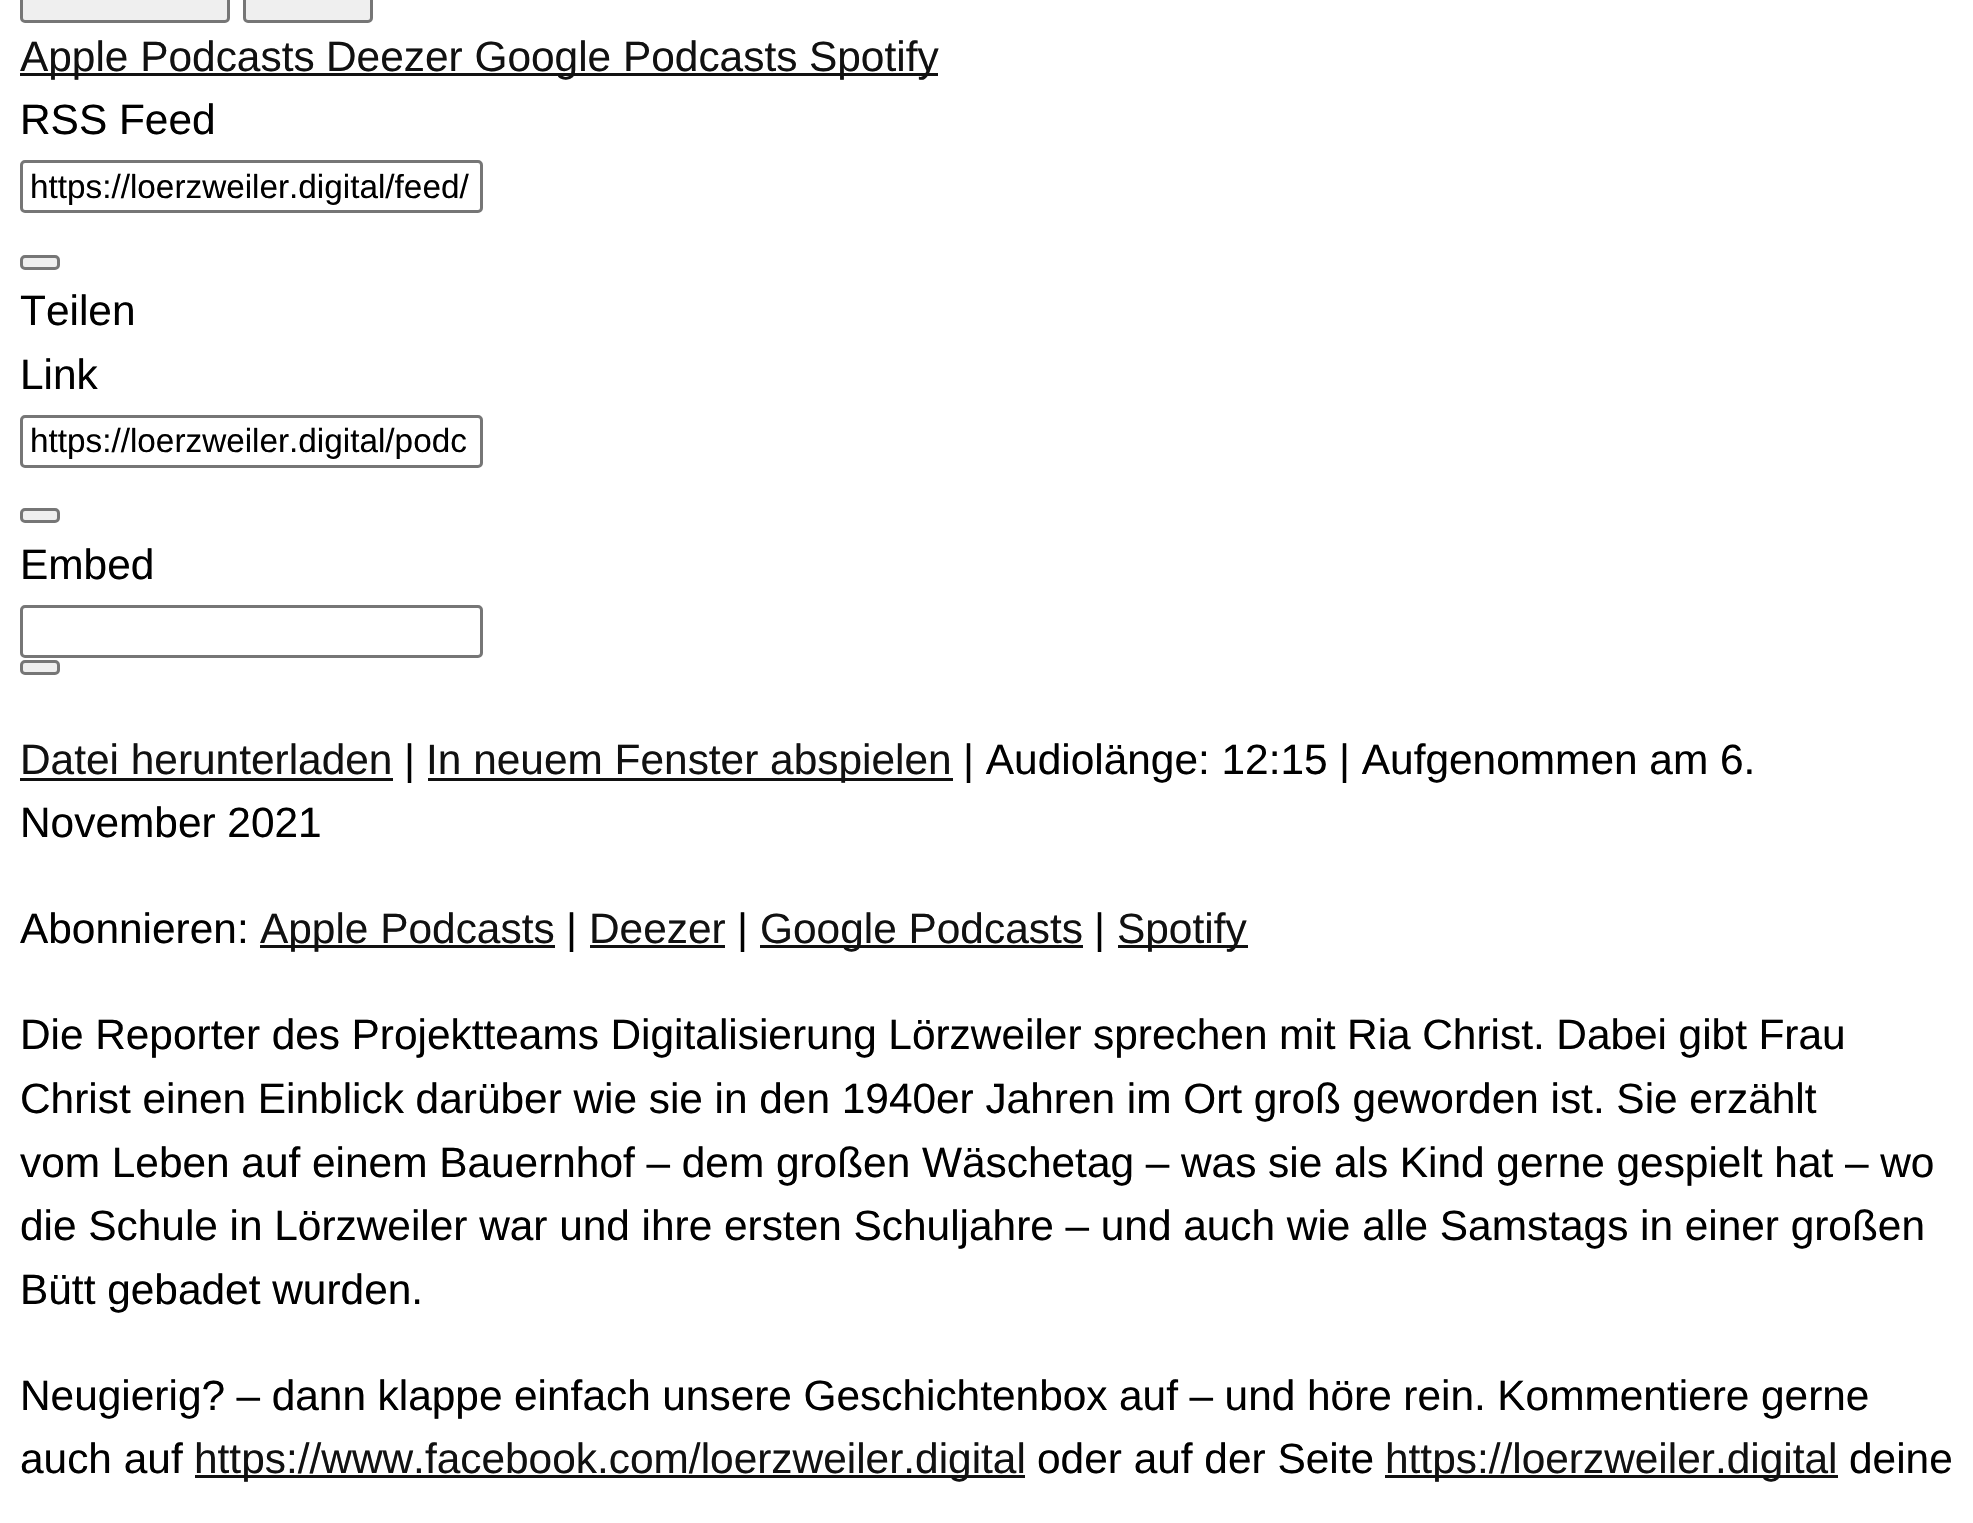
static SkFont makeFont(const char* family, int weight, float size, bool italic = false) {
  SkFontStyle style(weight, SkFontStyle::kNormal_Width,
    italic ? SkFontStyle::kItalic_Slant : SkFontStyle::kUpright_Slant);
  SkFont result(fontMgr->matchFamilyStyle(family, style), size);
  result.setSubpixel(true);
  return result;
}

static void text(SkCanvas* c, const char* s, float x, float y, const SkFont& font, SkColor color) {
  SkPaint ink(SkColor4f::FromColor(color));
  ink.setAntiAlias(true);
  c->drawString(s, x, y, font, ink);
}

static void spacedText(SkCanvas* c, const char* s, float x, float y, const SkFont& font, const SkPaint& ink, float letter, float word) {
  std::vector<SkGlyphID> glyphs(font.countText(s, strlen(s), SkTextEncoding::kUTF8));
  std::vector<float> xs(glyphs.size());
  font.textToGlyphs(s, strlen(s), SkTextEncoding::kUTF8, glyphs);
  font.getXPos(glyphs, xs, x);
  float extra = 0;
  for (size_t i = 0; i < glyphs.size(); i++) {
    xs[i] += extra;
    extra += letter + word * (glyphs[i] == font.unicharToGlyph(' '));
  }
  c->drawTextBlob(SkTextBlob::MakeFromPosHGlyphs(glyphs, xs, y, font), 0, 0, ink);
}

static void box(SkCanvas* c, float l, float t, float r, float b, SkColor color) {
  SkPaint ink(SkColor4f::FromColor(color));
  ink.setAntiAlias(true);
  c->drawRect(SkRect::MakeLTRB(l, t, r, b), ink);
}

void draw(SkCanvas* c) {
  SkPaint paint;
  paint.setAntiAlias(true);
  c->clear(0xffffffff);
  paint.setColor(0xffefefef);
  c->drawRoundRect(SkRect::MakeLTRB(21.5f, -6.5f, 228.5f, 21.5f), 3.5f, 3.5f, paint);
  paint.setStyle(SkPaint::kStroke_Style);
  paint.setStrokeWidth(3);
  paint.setColor(0xff767676);
  c->drawRoundRect(SkRect::MakeLTRB(21.5f, -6.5f, 228.5f, 21.5f), 3.5f, 3.5f, paint);
  paint.setStyle(SkPaint::kFill_Style);
  paint.setColor(0xffefefef);
  c->drawRoundRect(SkRect::MakeLTRB(244.5f, -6.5f, 371.5f, 21.5f), 3.5f, 3.5f, paint);
  paint.setStyle(SkPaint::kStroke_Style);
  paint.setColor(0xff767676);
  c->drawRoundRect(SkRect::MakeLTRB(244.5f, -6.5f, 371.5f, 21.5f), 3.5f, 3.5f, paint);
  box(c, 20, 73, 938, 76, 0xff111111);
  SkFont face1 = makeFont("Liberation Sans", 400, 42.4f);
  text(c, "Apple Podcasts", 20, 71, face1, 0xff111111);
  text(c, "Deezer Google Podcasts", 326, 71, face1, 0xff111111);
  text(c, "Spotify", 809, 71, face1, 0xff111111);
  text(c, "RSS Feed", 20, 134, face1, 0xff000000);
  c->drawRoundRect(SkRect::MakeLTRB(21.5f, 161.5f, 481.5f, 211.5f), 3.5f, 3.5f, paint);
  SkFont face2 = makeFont("Liberation Sans", 400, 33.3f);
  text(c, "https://loerzweiler.digital/feed/", 30, 198, face2, 0xff000000);
  paint.setStyle(SkPaint::kFill_Style);
  paint.setColor(0xffefefef);
  c->drawRoundRect(SkRect::MakeLTRB(21.5f, 256.5f, 58.5f, 268.5f), 3.5f, 3.5f, paint);
  paint.setStyle(SkPaint::kStroke_Style);
  paint.setColor(0xff767676);
  c->drawRoundRect(SkRect::MakeLTRB(21.5f, 256.5f, 58.5f, 268.5f), 3.5f, 3.5f, paint);
  text(c, "Teilen", 20, 325, face1, 0xff000000);
  text(c, "Link", 20, 389, face1, 0xff000000);
  c->drawRoundRect(SkRect::MakeLTRB(21.5f, 416.5f, 481.5f, 466.5f), 3.5f, 3.5f, paint);
  text(c, "https://loerzweiler.digital/podc", 30, 452, face2, 0xff000000);
  paint.setStyle(SkPaint::kFill_Style);
  paint.setColor(0xffefefef);
  c->drawRoundRect(SkRect::MakeLTRB(21.5f, 509.5f, 58.5f, 521.5f), 3.5f, 3.5f, paint);
  paint.setStyle(SkPaint::kStroke_Style);
  paint.setColor(0xff767676);
  c->drawRoundRect(SkRect::MakeLTRB(21.5f, 509.5f, 58.5f, 521.5f), 3.5f, 3.5f, paint);
  text(c, "Embed", 20, 579, face1, 0xff000000);
  c->drawRoundRect(SkRect::MakeLTRB(21.5f, 606.5f, 481.5f, 656.5f), 3.5f, 3.5f, paint);
  paint.setStyle(SkPaint::kFill_Style);
  paint.setColor(0xffefefef);
  c->drawRoundRect(SkRect::MakeLTRB(21.5f, 661.5f, 58.5f, 673.5f), 3.5f, 3.5f, paint);
  paint.setStyle(SkPaint::kStroke_Style);
  paint.setColor(0xff767676);
  c->drawRoundRect(SkRect::MakeLTRB(21.5f, 661.5f, 58.5f, 673.5f), 3.5f, 3.5f, paint);
  text(c, "Datei herunterladen", 20, 774, face1, 0xff111111);
  box(c, 20, 778, 393, 781, 0xff111111);
  text(c, "|", 404, 774, face1, 0xff000000);
  box(c, 428, 778, 953, 781, 0xff111111);
  text(c, "In neuem Fenster abspielen", 426, 774, face1, 0xff111111);
  text(c, "| Audiolänge: 12:15", 963, 774, face1, 0xff000000);
  text(c, "| Aufgenommen am", 1339, 774, face1, 0xff000000);
  text(c, "6.", 1720, 774, face1, 0xff000000);
  text(c, "November 2021", 20, 837, face1, 0xff000000);
  text(c, "Abonnieren:", 20, 943, face1, 0xff000000);
  box(c, 260, 945, 555, 948, 0xff111111);
  text(c, "Apple Podcasts", 260, 943, face1, 0xff111111);
  text(c, "|", 566, 943, face1, 0xff000000);
  text(c, "Deezer", 589, 943, face1, 0xff111111);
  box(c, 590, 945, 725, 948, 0xff111111);
  text(c, "|", 737, 943, face1, 0xff000000);
  box(c, 760, 945, 1083, 948, 0xff111111);
  text(c, "Google Podcasts", 760, 943, face1, 0xff111111);
  text(c, "|", 1094, 943, face1, 0xff000000);
  box(c, 1118, 945, 1248, 948, 0xff111111);
  text(c, "Spotify", 1117, 943, face1, 0xff111111);
  paint.setStyle(SkPaint::kFill_Style);
  paint.setColor(0xff000000);
  spacedText(c, "Die Reporter des Projektteams Digitalisierung Lörzweiler sprechen mit Ria Christ. Dabei gibt Frau", 20, 1049, face1, paint, 0, -0.25f);
  spacedText(c, "Christ einen Einblick darüber wie sie in den 1940er Jahren im Ort groß geworden ist. Sie erzählt", 20, 1113, face1, paint, 0, -0.1f);
  spacedText(c, "vom Leben auf einem Bauernhof – dem großen Wäschetag – was sie als Kind gerne gespielt hat – wo", 20, 1177, face1, paint, 0, -0.1f);
  spacedText(c, "die Schule in Lörzweiler war und ihre ersten Schuljahre – und auch wie alle Samstags in einer großen", 20, 1240, face1, paint, 0, -0.1f);
  text(c, "Bütt gebadet wurden.", 20, 1304, face1, 0xff000000);
  spacedText(c, "Neugierig? – dann klappe einfach unsere Geschichtenbox auf – und höre rein. Kommentiere gerne", 20, 1410, face1, paint, 0, -0.25f);
  text(c, "auch auf", 20, 1473, face1, 0xff000000);
  box(c, 195, 1475, 1025, 1478, 0xff111111);
  text(c, "https://www.facebook.com/loerzweiler.digital", 194, 1473, face1, 0xff111111);
  text(c, "oder auf der Seite", 1037, 1473, face1, 0xff000000);
  box(c, 1385, 1475, 1838, 1478, 0xff111111);
  text(c, "https://loerzweiler.digital", 1385, 1473, face1, 0xff111111);
  text(c, "deine", 1849, 1473, face1, 0xff000000);
}
